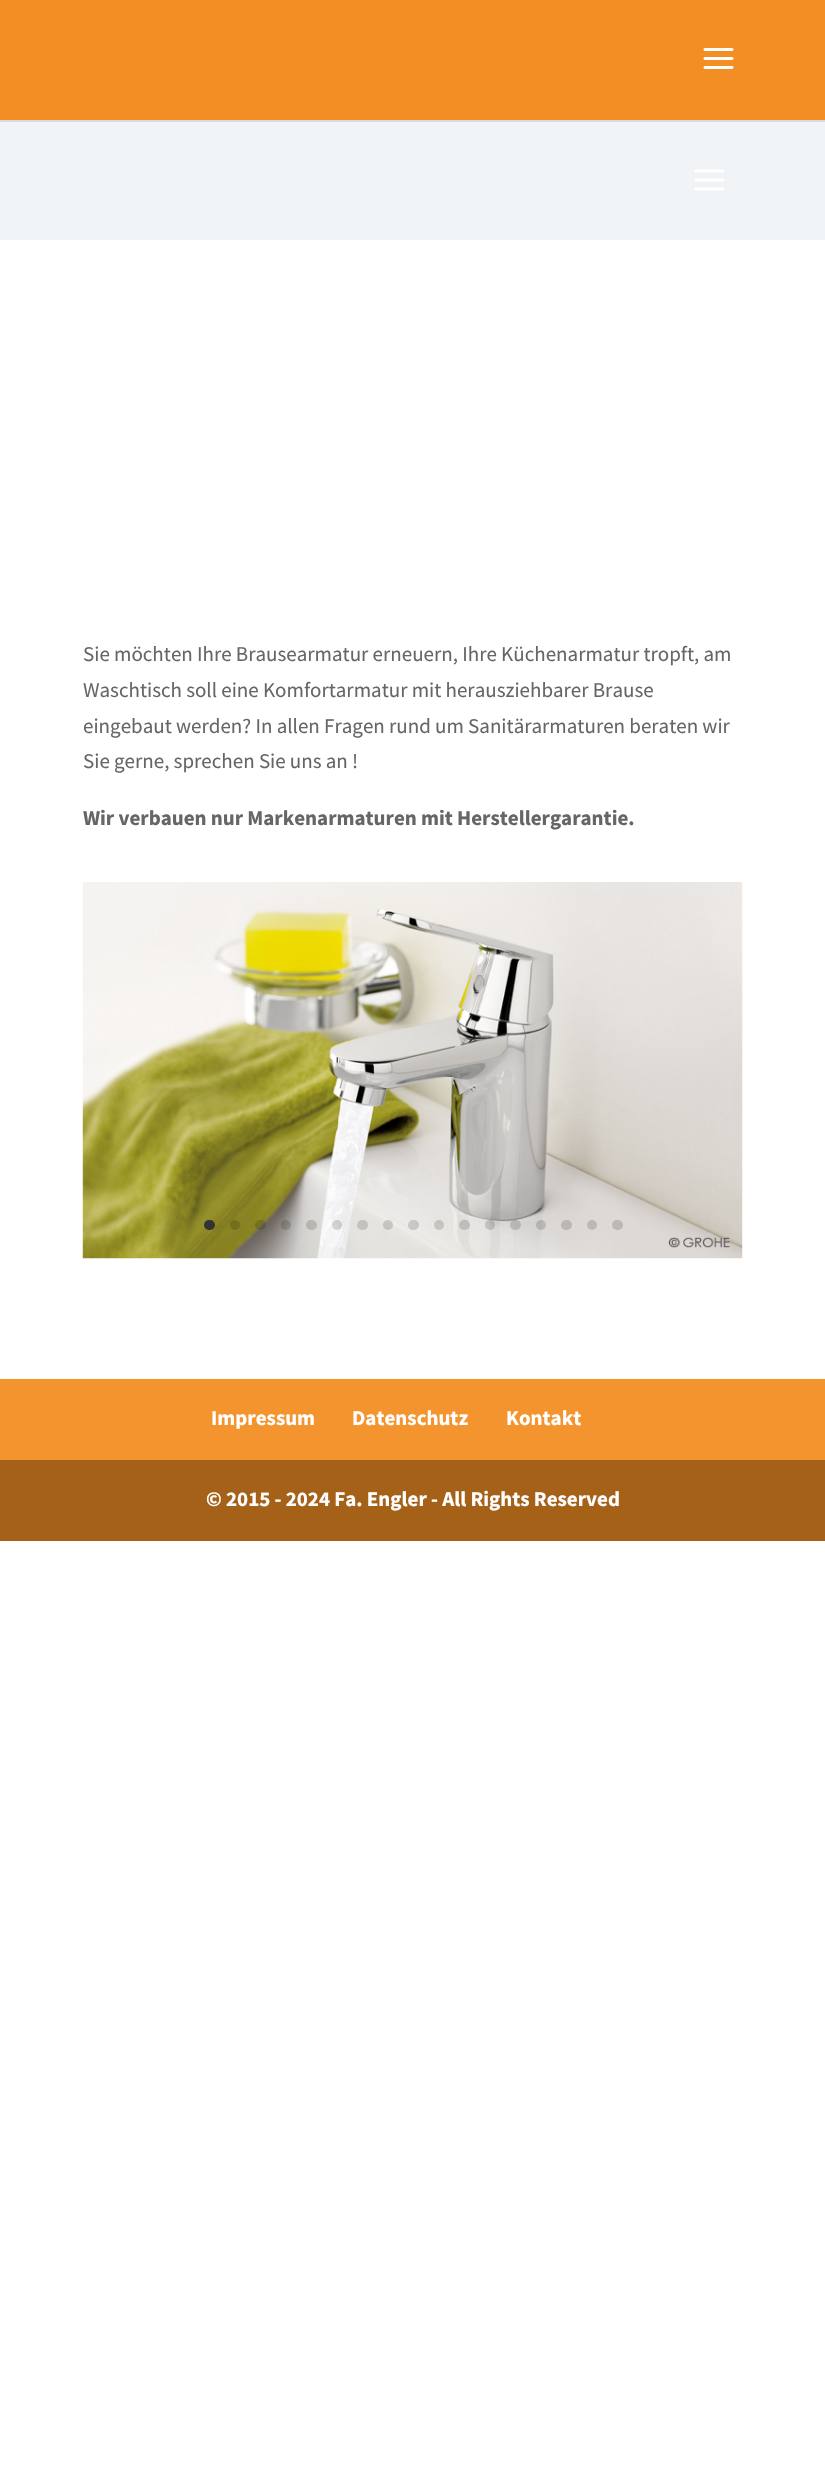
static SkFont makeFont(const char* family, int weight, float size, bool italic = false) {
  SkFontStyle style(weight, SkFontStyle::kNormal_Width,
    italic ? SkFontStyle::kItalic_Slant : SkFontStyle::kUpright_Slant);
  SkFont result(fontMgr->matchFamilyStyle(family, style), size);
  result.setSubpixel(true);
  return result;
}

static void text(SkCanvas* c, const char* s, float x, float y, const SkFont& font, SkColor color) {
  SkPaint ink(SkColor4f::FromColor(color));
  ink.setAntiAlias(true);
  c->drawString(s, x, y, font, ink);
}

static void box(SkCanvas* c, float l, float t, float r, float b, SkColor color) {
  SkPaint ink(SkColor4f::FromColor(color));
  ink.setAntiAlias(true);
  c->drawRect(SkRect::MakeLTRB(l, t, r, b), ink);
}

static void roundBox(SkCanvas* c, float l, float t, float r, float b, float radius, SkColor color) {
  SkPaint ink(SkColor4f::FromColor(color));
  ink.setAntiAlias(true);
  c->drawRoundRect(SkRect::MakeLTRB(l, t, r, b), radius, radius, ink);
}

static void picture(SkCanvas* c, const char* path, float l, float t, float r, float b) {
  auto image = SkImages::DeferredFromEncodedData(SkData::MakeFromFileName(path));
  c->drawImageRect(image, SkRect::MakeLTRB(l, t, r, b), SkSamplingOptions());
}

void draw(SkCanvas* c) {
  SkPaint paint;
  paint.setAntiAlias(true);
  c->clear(0xffffffff);
  box(c, 0, 120, 825, 122, 0xffd9dcde);
  box(c, 0, 0, 825, 120, 0xfff28e23);
  picture(c, "img_01.png", 703, 48, 734, 69);
  box(c, 0, 122, 825, 240, 0xfff1f4f7);
  picture(c, "img_02.png", 694, 169, 725, 191);
  SkFont face1 = makeFont("Source Sans Pro", 400, 21);
  text(c, "Sie möchten Ihre Brausearmatur erneuern, Ihre Küchenarmatur tropft, am", 83, 661, face1, 0xff666666);
  text(c, "Waschtisch soll eine Komfortarmatur mit herausziehbarer Brause", 83, 697, face1, 0xff666666);
  text(c, "eingebaut werden? In allen Fragen rund um Sanitärarmaturen beraten wir", 83, 733, face1, 0xff666666);
  text(c, "Sie gerne, sprechen Sie uns an !", 83, 768, face1, 0xff666666);
  SkFont face2 = makeFont("Source Sans Pro", 700, 21);
  text(c, "Wir verbauen nur Markenarmaturen mit Herstellergarantie.", 83, 825, face2, 0xff666666);
  picture(c, "img_03.png", 82, 882, 743, 1259);
  roundBox(c, 204, 1220, 215, 1230, 5, 0xff333333);
  paint.setColor(0x26000000);
  c->drawCircle(235, 1225, 5, paint);
  roundBox(c, 255, 1220, 266, 1230, 5, 0x26000000);
  c->drawCircle(286, 1225, 5, paint);
  roundBox(c, 306, 1220, 317, 1230, 5, 0x26000000);
  c->drawCircle(337, 1225, 5, paint);
  roundBox(c, 357, 1220, 368, 1230, 5, 0xffc2c2be);
  c->drawCircle(388, 1225, 5, paint);
  roundBox(c, 408, 1220, 419, 1230, 5, 0x26000000);
  c->drawCircle(439, 1225, 5, paint);
  roundBox(c, 459, 1220, 470, 1230, 5, 0x26000000);
  c->drawCircle(490, 1225, 5, paint);
  roundBox(c, 510, 1220, 521, 1230, 5, 0x26000000);
  c->drawCircle(541, 1225, 5, paint);
  roundBox(c, 561, 1220, 572, 1230, 5, 0xffbbb7b5);
  paint.setColor(0xffbcb8b6);
  c->drawCircle(592, 1225, 5, paint);
  roundBox(c, 612, 1220, 623, 1230, 5, 0xffbcb8b6);
  box(c, 0, 1379, 825, 1460, 0xfff3942e);
  text(c, "Impressum", 211, 1425, face2, 0xffffffff);
  text(c, "Datenschutz", 352, 1425, face2, 0xffffffff);
  text(c, "Kontakt", 506, 1425, face2, 0xffffffff);
  box(c, 0, 1460, 825, 1541, 0xffa56118);
  text(c, "© 2015 - 2024 Fa. Engler - All Rights Reserved", 206, 1506, face2, 0xffffffff);
}
